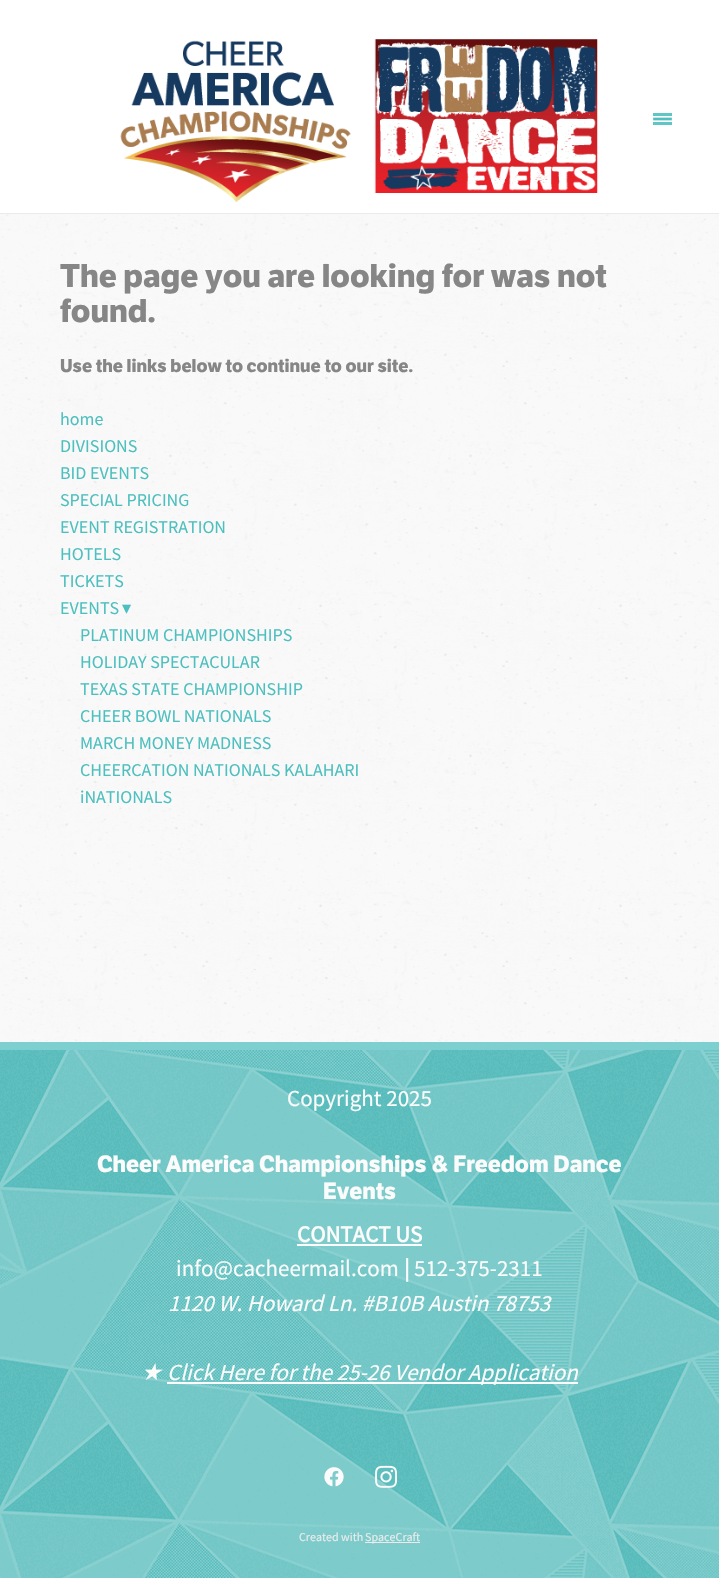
static SkFont makeFont(const char* family, int weight, float size, bool italic = false) {
  SkFontStyle style(weight, SkFontStyle::kNormal_Width,
    italic ? SkFontStyle::kItalic_Slant : SkFontStyle::kUpright_Slant);
  SkFont result(fontMgr->matchFamilyStyle(family, style), size);
  result.setSubpixel(true);
  return result;
}

static void text(SkCanvas* c, const char* s, float x, float y, const SkFont& font, SkColor color) {
  SkPaint ink(SkColor4f::FromColor(color));
  ink.setAntiAlias(true);
  c->drawString(s, x, y, font, ink);
}

static void box(SkCanvas* c, float l, float t, float r, float b, SkColor color) {
  SkPaint ink(SkColor4f::FromColor(color));
  ink.setAntiAlias(true);
  c->drawRect(SkRect::MakeLTRB(l, t, r, b), ink);
}

static void picture(SkCanvas* c, const char* path, float l, float t, float r, float b) {
  auto image = SkImages::DeferredFromEncodedData(SkData::MakeFromFileName(path));
  c->drawImageRect(image, SkRect::MakeLTRB(l, t, r, b), SkSamplingOptions());
}

void draw(SkCanvas* c) {
  SkPaint paint;
  paint.setAntiAlias(true);
  c->clear(0xffffffff);
  picture(c, "img_01.png", 0, 214, 719, 1042);
  box(c, 0, 213, 719, 214, 0xffebebeb);
  picture(c, "img_02.png", 120, 39, 598, 203);
  box(c, 653, 113, 672, 116, 0xff5fc5c5);
  paint.setStyle(SkPaint::kStroke_Style);
  paint.setStrokeWidth(2.7f);
  paint.setStrokeCap(SkPaint::kSquare_Cap);
  paint.setColor(0xff4dbfbf);
  c->drawPath(SkPathBuilder().moveTo(654.5f, 119).lineTo(670.5f, 119).detach(), paint);
  box(c, 653, 122, 672, 125, 0xff5fc5c5);
  SkFont face1 = makeFont("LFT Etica", 700, 32);
  text(c, "The page you are looking for was not", 60, 287, face1, 0xff868686);
  text(c, "found.", 60, 322, face1, 0xff868686);
  SkFont face2 = makeFont("LFT Etica", 700, 18);
  text(c, "Use the links below to continue to our site.", 60, 372, face2, 0xff868686);
  SkFont face3 = makeFont("Source Sans Pro", 400, 18);
  text(c, "home", 60, 425, face3, 0xff4dbfbf);
  text(c, "DIVISIONS", 60, 452, face3, 0xff4dbfbf);
  text(c, "BID EVENTS", 60, 479, face3, 0xff4dbfbf);
  text(c, "SPECIAL PRICING", 60, 506, face3, 0xff4dbfbf);
  text(c, "EVENT REGISTRATION", 60, 533, face3, 0xff4dbfbf);
  text(c, "HOTELS", 60, 560, face3, 0xff4dbfbf);
  text(c, "TICKETS", 60, 587, face3, 0xff4dbfbf);
  text(c, "EVENTS", 60, 614, face3, 0xff4dbfbf);
  SkFont face4 = makeFont("DejaVu Sans", 400, 18);
  text(c, "▾", 122, 614, face4, 0xff4dbfbf);
  text(c, "PLATINUM CHAMPIONSHIPS", 80, 641, face3, 0xff4dbfbf);
  text(c, "HOLIDAY SPECTACULAR", 80, 668, face3, 0xff4dbfbf);
  text(c, "TEXAS STATE CHAMPIONSHIP", 80, 695, face3, 0xff4dbfbf);
  text(c, "CHEER BOWL NATIONALS", 80, 722, face3, 0xff4dbfbf);
  text(c, "MARCH MONEY MADNESS", 80, 749, face3, 0xff4dbfbf);
  text(c, "CHEERCATION NATIONALS KALAHARI", 80, 776, face3, 0xff4dbfbf);
  text(c, "iNATIONALS", 80, 803, face3, 0xff4dbfbf);
  picture(c, "img_03.png", 0, 1050, 719, 1578);
  box(c, 0, 1042, 719, 1050, 0xff7ed0d0);
  SkFont face5 = makeFont("Source Sans Pro", 400, 23);
  text(c, "Copyright 2025", 287, 1106, face5, 0xfffbfbfb);
  SkFont face6 = makeFont("LFT Etica", 700, 23);
  text(c, "Cheer America Championships & Freedom Dance", 97, 1172, face6, 0xfffbfbfb);
  text(c, "Events", 323, 1199, face6, 0xfffbfbfb);
  SkFont face7 = makeFont("Source Sans Pro", 700, 23);
  text(c, "CONTACT US", 297, 1242, face7, 0xfffbfbfb);
  box(c, 297, 1244, 422, 1246, 0xfffbfbfb);
  text(c, "info@cacheermail.com", 176, 1276, face5, 0xfffbfbfb);
  text(c, "|", 404, 1276, face7, 0xfffbfbfb);
  text(c, "512-375-2311", 414, 1276, face5, 0xfffbfbfb);
  SkFont face8 = makeFont("Source Sans Pro", 400, 23, true);
  text(c, "1120 W. Howard Ln. #B10B Austin 78753", 168, 1311, face8, 0xfffbfbfb);
  SkFont face9 = makeFont("DejaVu Sans", 400, 23, true);
  text(c, "★", 141, 1380, face9, 0xfffbfbfb);
  box(c, 167, 1382, 578, 1384, 0xfffbfbfb);
  text(c, "Click Here for the 25-26 Vendor Application", 167, 1380, face8, 0xfffbfbfb);
  picture(c, "img_04.png", 324, 1467, 344, 1487);
  picture(c, "img_05.png", 375, 1465, 398, 1488);
  SkFont face10 = makeFont("Source Sans Pro", 400, 12);
  text(c, "Created with", 299, 1541, face10, 0xffebebeb);
  box(c, 365, 1542, 420, 1543, 0xffebebeb);
  text(c, "SpaceCraft", 365, 1541, face10, 0xffebebeb);
}
